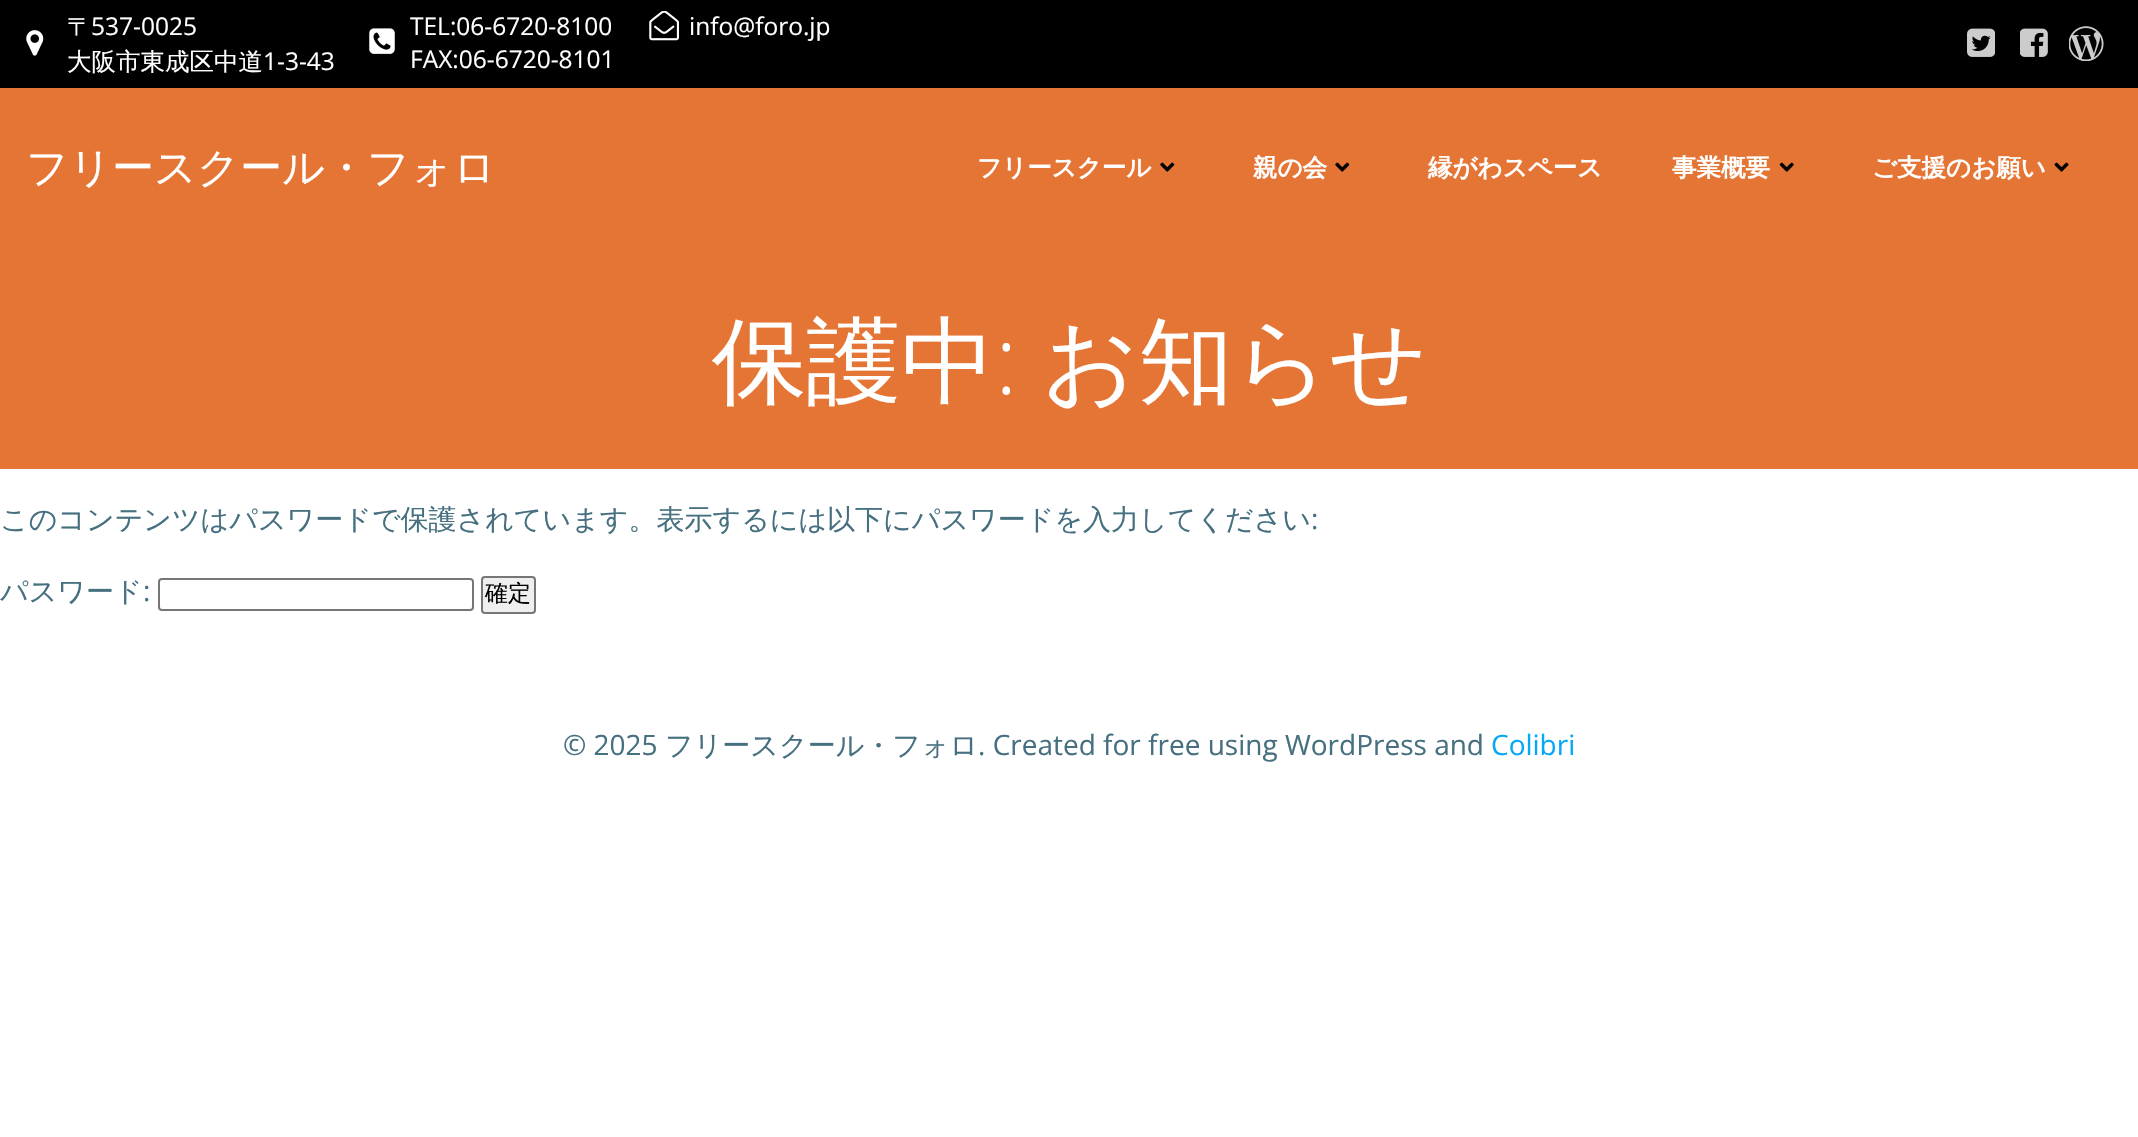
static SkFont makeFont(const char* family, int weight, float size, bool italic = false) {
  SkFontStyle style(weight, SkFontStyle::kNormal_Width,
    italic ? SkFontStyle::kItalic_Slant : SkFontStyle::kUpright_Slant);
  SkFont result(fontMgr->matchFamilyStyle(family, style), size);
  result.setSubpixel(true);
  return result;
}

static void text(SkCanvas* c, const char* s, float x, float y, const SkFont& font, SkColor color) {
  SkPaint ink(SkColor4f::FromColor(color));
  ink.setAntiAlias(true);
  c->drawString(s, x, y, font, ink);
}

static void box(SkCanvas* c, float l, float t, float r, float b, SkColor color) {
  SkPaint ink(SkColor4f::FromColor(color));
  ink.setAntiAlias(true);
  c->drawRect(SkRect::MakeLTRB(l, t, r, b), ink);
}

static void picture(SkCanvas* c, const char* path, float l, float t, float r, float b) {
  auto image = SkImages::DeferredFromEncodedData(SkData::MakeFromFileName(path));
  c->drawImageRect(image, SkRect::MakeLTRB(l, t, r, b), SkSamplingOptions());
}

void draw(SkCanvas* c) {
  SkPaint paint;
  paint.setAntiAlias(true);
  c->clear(0xffffffff);
  box(c, 0, 0, 2138, 88, 0xff000000);
  picture(c, "img_01.png", 26, 30, 44, 56);
  SkFont face1 = makeFont("WenQuanYi Zen Hei", 500, 24.5f);
  text(c, "〒", 67, 35, face1, 0xffffffff);
  SkFont face2 = makeFont("Open Sans", 400, 24.5f);
  text(c, "537-0025", 91, 35, face2, 0xffffffff);
  text(c, "大阪市東成区中道", 67, 70, face1, 0xffffffff);
  text(c, "1-3-43", 263, 70, face2, 0xffffffff);
  picture(c, "img_02.png", 369, 28, 395, 54);
  c->save();
  c->clipRect(SkRect::MakeLTRB(410, 9, 614, 75));
  text(c, "TEL:06-6720-8100", 410, 35, face2, 0xffffffff);
  c->restore();
  text(c, "FAX:06-6720-8101", 410, 68, face2, 0xffffffff);
  picture(c, "img_03.png", 649, 11, 679, 41);
  text(c, "info@foro.jp", 689, 35, face2, 0xffffffff);
  picture(c, "img_04.png", 1967, 28, 1995, 57);
  picture(c, "img_05.png", 2020, 28, 2048, 57);
  picture(c, "img_06.png", 2069, 26, 2104, 61);
  box(c, 0, 88, 2138, 469, 0xffe57534);
  SkFont face3 = makeFont("WenQuanYi Zen Hei", 500, 42);
  text(c, "フリースクール・フォロ", 26, 182, face3, 0xffffffff);
  SkFont face4 = makeFont("WenQuanYi Zen Hei", 700, 24.5f);
  text(c, "フリースクール", 977, 176, face4, 0xffffffff);
  picture(c, "img_07.png", 1160, 162, 1175, 172);
  text(c, "親の会", 1253, 176, face4, 0xffffffff);
  picture(c, "img_07.png", 1335, 162, 1350, 172);
  text(c, "縁がわスペース", 1428, 176, face4, 0xffffffff);
  text(c, "事業概要", 1672, 176, face4, 0xffffffff);
  picture(c, "img_08.png", 1779, 162, 1794, 172);
  text(c, "ご支援のお願い", 1872, 176, face4, 0xffffffff);
  picture(c, "img_09.png", 2054, 162, 2069, 172);
  SkFont face5 = makeFont("WenQuanYi Zen Hei", 500, 94.5f);
  text(c, "保護中", 712, 394, face5, 0xffffffff);
  SkFont face6 = makeFont("Open Sans", 300, 94.5f);
  text(c, ":", 995, 394, face6, 0xffffffff);
  text(c, "お知らせ", 1042, 394, face5, 0xffffffff);
  SkFont face7 = makeFont("WenQuanYi Zen Hei", 500, 28);
  text(c, "このコンテンツはパスワードで保護されています。表示するには以下にパスワードを入力してください", 0, 529, face7, 0xff46707f);
  SkFont face8 = makeFont("Open Sans", 400, 28);
  text(c, ":", 1311, 529, face8, 0xff46707f);
  text(c, "パスワード", 0, 601, face7, 0xff46707f);
  text(c, ":", 143, 601, face8, 0xff46707f);
  paint.setStyle(SkPaint::kStroke_Style);
  paint.setStrokeWidth(2);
  paint.setColor(0xff767676);
  c->drawRoundRect(SkRect::MakeLTRB(159, 579, 473, 610), 3, 3, paint);
  paint.setStyle(SkPaint::kFill_Style);
  paint.setColor(0xffefefef);
  c->drawRoundRect(SkRect::MakeLTRB(482, 577, 535, 613), 3, 3, paint);
  paint.setStyle(SkPaint::kStroke_Style);
  paint.setColor(0xff767676);
  c->drawRoundRect(SkRect::MakeLTRB(482, 577, 535, 613), 3, 3, paint);
  SkFont face9 = makeFont("WenQuanYi Zen Hei", 500, 23);
  text(c, "確定", 485, 601, face9, 0xff000000);
  text(c, "© 2025", 563, 755, face8, 0xff46707f);
  text(c, "フリースクール・フォロ", 665, 755, face7, 0xff46707f);
  text(c, ". Created for free using WordPress and", 978, 755, face8, 0xff46707f);
  text(c, "Colibri", 1491, 755, face8, 0xff03a9f4);
}
